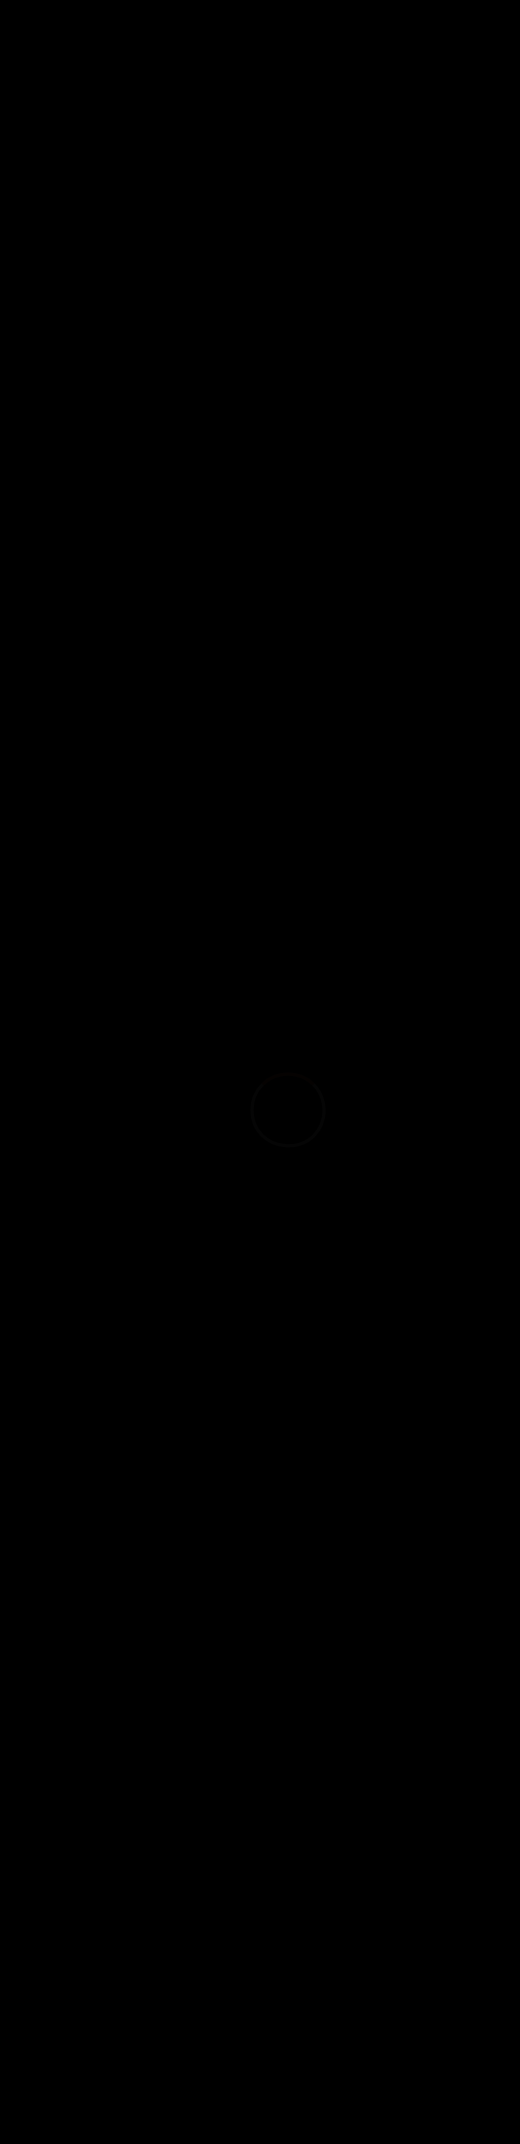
void draw(SkCanvas* c) {
  SkPaint paint;
  paint.setAntiAlias(true);
  c->clear(0xff000000);
  paint.setStyle(SkPaint::kStroke_Style);
  paint.setStrokeWidth(3);
  paint.setColor(0xff050201);
  c->drawPath(SkPathBuilder().moveTo(262.5f, 1084.5f).cubicTo(276.5f, 1070.5f, 299.5f, 1070.5f, 313.5f, 1084.5f).detach(), paint);
  paint.setColor(0xff050505);
  c->drawPath(SkPathBuilder().moveTo(313.5f, 1084.5f).cubicTo(322, 1093, 325.5f, 1105.5f, 323.5f, 1117).cubicTo(315, 1159.5f, 252, 1153, 252, 1110).cubicTo(252, 1100.5f, 256, 1091, 262.5f, 1084.5f).detach(), paint);
}
